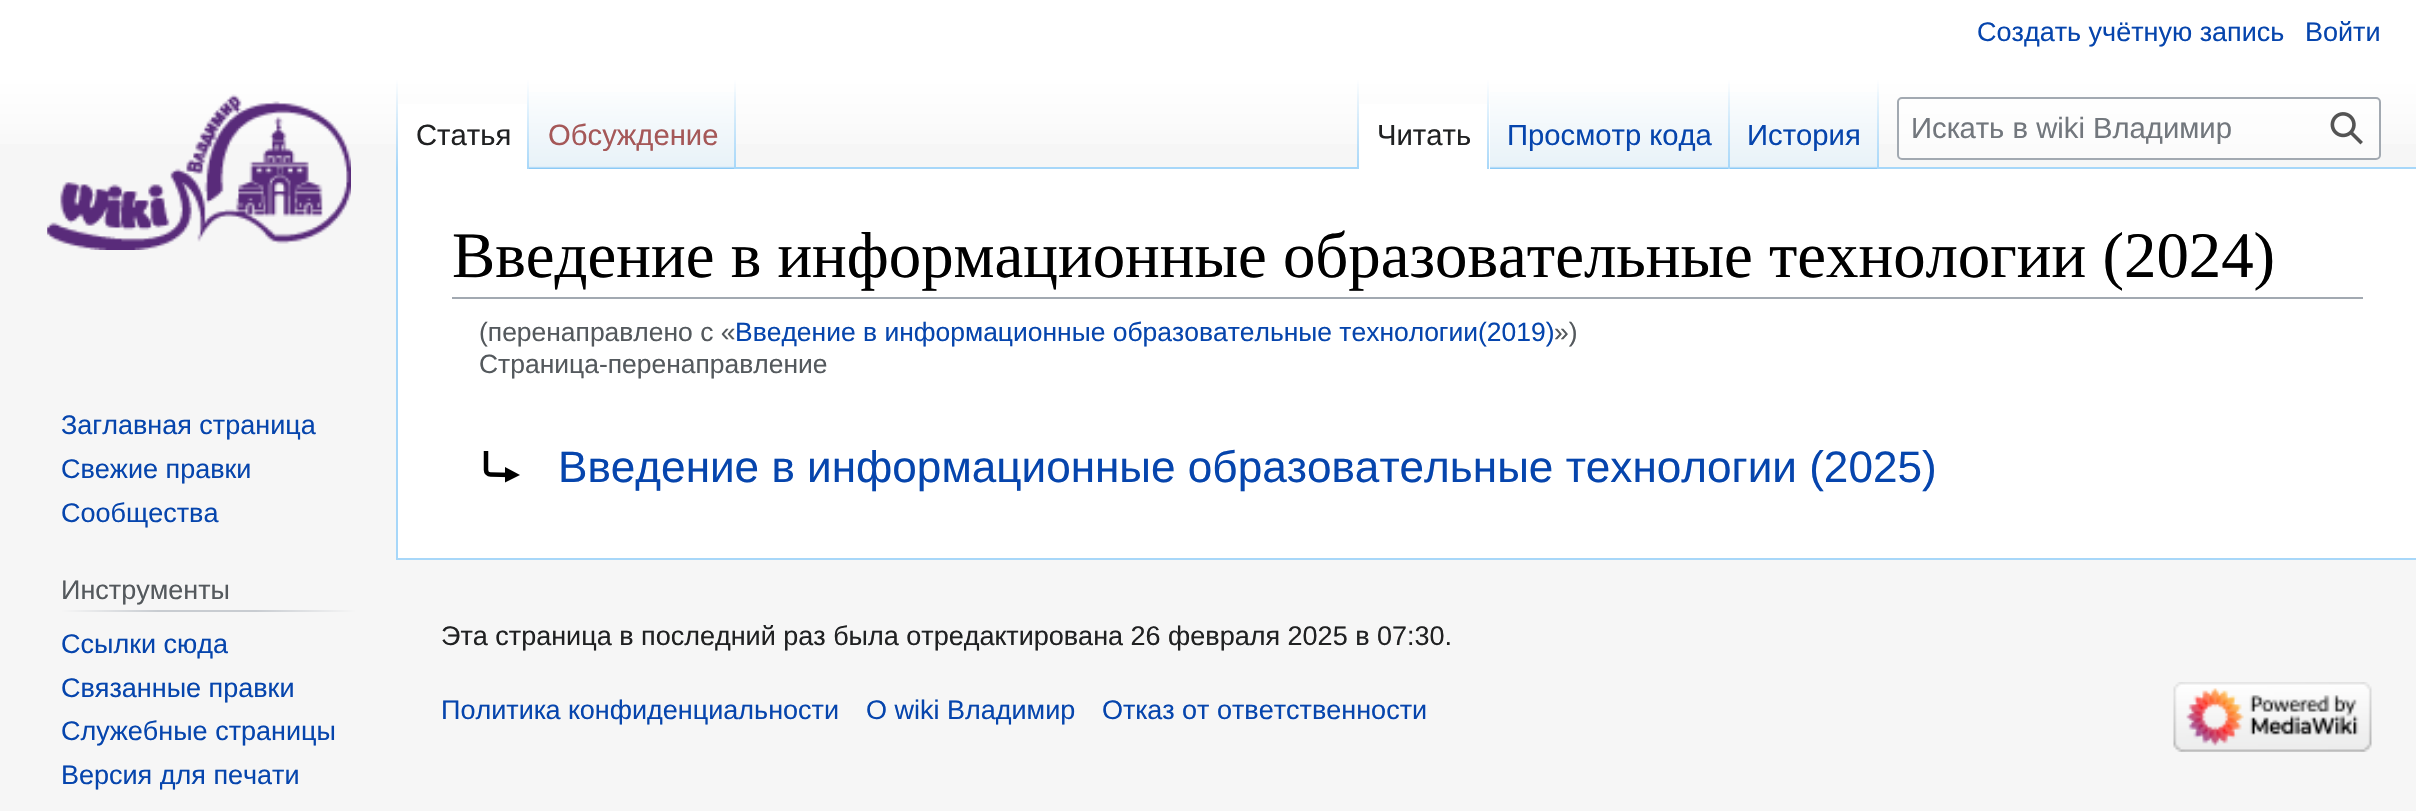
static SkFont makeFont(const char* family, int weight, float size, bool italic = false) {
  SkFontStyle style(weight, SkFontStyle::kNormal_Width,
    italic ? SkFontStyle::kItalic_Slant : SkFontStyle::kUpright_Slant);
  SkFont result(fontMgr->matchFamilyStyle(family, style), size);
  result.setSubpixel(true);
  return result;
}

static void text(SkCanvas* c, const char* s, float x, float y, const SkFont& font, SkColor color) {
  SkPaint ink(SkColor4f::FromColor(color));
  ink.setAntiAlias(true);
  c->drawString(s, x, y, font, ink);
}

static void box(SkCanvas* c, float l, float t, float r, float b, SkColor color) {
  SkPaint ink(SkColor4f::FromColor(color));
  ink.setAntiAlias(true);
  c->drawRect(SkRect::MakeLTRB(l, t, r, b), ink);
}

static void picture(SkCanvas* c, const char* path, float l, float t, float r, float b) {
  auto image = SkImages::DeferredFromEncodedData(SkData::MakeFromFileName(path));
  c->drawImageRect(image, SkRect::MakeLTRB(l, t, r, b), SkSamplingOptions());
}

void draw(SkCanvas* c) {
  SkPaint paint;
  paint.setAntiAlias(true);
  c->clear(0xfff6f6f6);
  {
    const SkColor colors[] = {0xffffffff, 0xfff6f6f6};
    const float stops[] = {0.5f, 1};
    const SkPoint ends[] = {{1208, -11}, {1208, 169}};
    paint.setShader(SkGradientShader::MakeLinear(ends, colors, stops, 2, SkTileMode::kClamp));
    paint.setAlpha(255);
  }
  c->drawRect(SkRect::MakeLTRB(0, 0, 2416, 144), paint);
  SkFont face1 = makeFont("Liberation Sans", 400, 27);
  text(c, "Создать учётную запись", 1977, 41, face1, 0xff0645ad);
  text(c, "Войти", 2305, 41, face1, 0xff0645ad);
  box(c, 396, 558, 2416, 560, 0xffa7d7f9);
  box(c, 396, 167, 398, 560, 0xffa7d7f9);
  {
    const SkColor colors[] = {0x00a7d7f9, 0xffa7d7f9};
    const float stops[] = {0, 1};
    const SkPoint ends[] = {{397, 79}, {397, 169}};
    paint.setShader(SkGradientShader::MakeLinear(ends, colors, stops, 2, SkTileMode::kClamp));
    paint.setAlpha(255);
  }
  c->drawRect(SkRect::MakeLTRB(396, 79, 398, 169), paint);
  box(c, 398, 104, 527, 169, 0xffffffff);
  {
    const SkColor colors[] = {0xffffffff, 0xffa7d7f9};
    const float stops[] = {0, 1};
    const SkPoint ends[] = {{528, 79}, {528, 169}};
    paint.setShader(SkGradientShader::MakeLinear(ends, colors, stops, 2, SkTileMode::kClamp));
    paint.setAlpha(255);
  }
  c->drawRect(SkRect::MakeLTRB(527, 79, 529, 169), paint);
  SkFont face2 = makeFont("Liberation Sans", 400, 29.25f);
  text(c, "Статья", 416, 145, face2, 0xff202122);
  {
    const SkColor colors[] = {0xff77c1f6, 0xffe8f2f8, 0xffffffff};
    const float stops[] = {0, 0.03f, 1};
    const SkPoint ends[] = {{632, 169}, {632, 79}};
    paint.setShader(SkGradientShader::MakeLinear(ends, colors, stops, 3, SkTileMode::kClamp));
    paint.setAlpha(255);
  }
  c->drawRect(SkRect::MakeLTRB(529, 92, 736, 169), paint);
  {
    const SkColor colors[] = {0x00a7d7f9, 0xffa7d7f9};
    const float stops[] = {0, 1};
    const SkPoint ends[] = {{735, 79}, {735, 169}};
    paint.setShader(SkGradientShader::MakeLinear(ends, colors, stops, 2, SkTileMode::kClamp));
    paint.setAlpha(255);
  }
  c->drawRect(SkRect::MakeLTRB(734, 79, 736, 169), paint);
  text(c, "Обсуждение", 548, 145, face2, 0xffa55858);
  box(c, 736, 167, 2416, 169, 0xffa7d7f9);
  {
    const SkColor colors[] = {0x00a7d7f9, 0xffa7d7f9};
    const float stops[] = {0, 1};
    const SkPoint ends[] = {{1358, 79}, {1358, 169}};
    paint.setShader(SkGradientShader::MakeLinear(ends, colors, stops, 2, SkTileMode::kClamp));
    paint.setAlpha(255);
  }
  c->drawRect(SkRect::MakeLTRB(1357, 79, 1359, 169), paint);
  box(c, 1359, 104, 1490, 169, 0xffffffff);
  {
    const SkColor colors[] = {0xffffffff, 0xffa7d7f9};
    const float stops[] = {0, 1};
    const SkPoint ends[] = {{1488, 79}, {1488, 169}};
    paint.setShader(SkGradientShader::MakeLinear(ends, colors, stops, 2, SkTileMode::kClamp));
    paint.setAlpha(255);
  }
  c->drawRect(SkRect::MakeLTRB(1487, 79, 1489, 169), paint);
  text(c, "Читать", 1377, 145, face2, 0xff202122);
  {
    const SkColor colors[] = {0xff77c1f6, 0xffe8f2f8, 0xffffffff};
    const float stops[] = {0, 0.03f, 1};
    const SkPoint ends[] = {{1610, 169}, {1610, 79}};
    paint.setShader(SkGradientShader::MakeLinear(ends, colors, stops, 3, SkTileMode::kClamp));
    paint.setAlpha(255);
  }
  c->drawRect(SkRect::MakeLTRB(1490, 92, 1730, 169), paint);
  {
    const SkColor colors[] = {0x00a7d7f9, 0xffa7d7f9};
    const float stops[] = {0, 1};
    const SkPoint ends[] = {{1729, 79}, {1729, 169}};
    paint.setShader(SkGradientShader::MakeLinear(ends, colors, stops, 2, SkTileMode::kClamp));
    paint.setAlpha(255);
  }
  c->drawRect(SkRect::MakeLTRB(1728, 79, 1730, 169), paint);
  text(c, "Просмотр кода", 1507, 145, face2, 0xff0645ad);
  {
    const SkColor colors[] = {0xff77c1f6, 0xffe8f2f8, 0xffffffff};
    const float stops[] = {0, 0.03f, 1};
    const SkPoint ends[] = {{1805, 169}, {1805, 79}};
    paint.setShader(SkGradientShader::MakeLinear(ends, colors, stops, 3, SkTileMode::kClamp));
    paint.setAlpha(255);
  }
  c->drawRect(SkRect::MakeLTRB(1730, 92, 1879, 169), paint);
  {
    const SkColor colors[] = {0x00a7d7f9, 0xffa7d7f9};
    const float stops[] = {0, 1};
    const SkPoint ends[] = {{1878, 79}, {1878, 169}};
    paint.setShader(SkGradientShader::MakeLinear(ends, colors, stops, 2, SkTileMode::kClamp));
    paint.setAlpha(255);
  }
  c->drawRect(SkRect::MakeLTRB(1877, 79, 1879, 169), paint);
  text(c, "История", 1747, 145, face2, 0xff0645ad);
  paint.setShader(nullptr);
  paint.setColor(0x80ffffff);
  c->drawRoundRect(SkRect::MakeLTRB(1898, 98, 2380, 159), 4, 4, paint);
  paint.setStyle(SkPaint::kStroke_Style);
  paint.setStrokeWidth(2);
  paint.setColor(0xffa2a9b1);
  c->drawRoundRect(SkRect::MakeLTRB(1898, 98, 2380, 159), 4, 4, paint);
  text(c, "Искать в wiki Владимир", 1911, 138, face2, 0xff72777d);
  picture(c, "img_01.png", 2330, 112, 2363, 145);
  picture(c, "img_02.png", 47, 94, 351, 250);
  text(c, "Заглавная страница", 61, 434, face1, 0xff0645ad);
  text(c, "Свежие правки", 61, 478, face1, 0xff0645ad);
  text(c, "Сообщества", 61, 522, face1, 0xff0645ad);
  paint.setStyle(SkPaint::kFill_Style);
  {
    const SkColor colors[] = {0xfff6f6f6, 0xffc8ccd1, 0xffc8ccd1, 0xfff6f6f6};
    const float stops[] = {0, 0.33f, 0.66f, 1};
    const SkPoint ends[] = {{61, 611}, {356, 611}};
    paint.setShader(SkGradientShader::MakeLinear(ends, colors, stops, 4, SkTileMode::kClamp));
    paint.setAlpha(255);
  }
  c->drawRect(SkRect::MakeLTRB(61, 610, 356, 612), paint);
  text(c, "Инструменты", 61, 599, face1, 0xff54595d);
  text(c, "Ссылки сюда", 61, 653, face1, 0xff0645ad);
  text(c, "Связанные правки", 61, 697, face1, 0xff0645ad);
  text(c, "Служебные страницы", 61, 740, face1, 0xff0645ad);
  text(c, "Версия для печати", 61, 784, face1, 0xff0645ad);
  box(c, 398, 169, 2416, 558, 0xffffffff);
  box(c, 452, 297, 2363, 299, 0xffa2a9b1);
  SkFont face3 = makeFont("Liberation Serif", 400, 64.8f);
  text(c, "Введение в информационные образовательные технологии (2024)", 452, 277, face3, 0xff000000);
  SkFont face4 = makeFont("Liberation Sans", 400, 26.45f);
  text(c, "(перенаправлено с «", 479, 341, face4, 0xff54595d);
  text(c, "Введение в информационные образовательные технологии(2019)", 735, 341, face4, 0xff0645ad);
  text(c, "»)", 1554, 341, face4, 0xff54595d);
  text(c, "Страница-перенаправление", 479, 373, face4, 0xff54595d);
  SkFont face5 = makeFont("Liberation Sans", 400, 44.1f);
  text(c, "Введение в информационные образовательные технологии (2025)", 558, 482, face5, 0xff0645ad);
  paint.setStyle(SkPaint::kStroke_Style);
  paint.setStrokeWidth(4.5f);
  paint.setShader(nullptr);
  paint.setColor(0xff000000);
  c->drawPath(SkPathBuilder().moveTo(486, 451).lineTo(486, 470).cubicTo(486, 472.5f, 488, 474.5f, 490.5f, 474.5f).lineTo(511, 475).detach(), paint);
  paint.setStyle(SkPaint::kFill_Style);
  c->drawPath(SkPathBuilder().moveTo(505, 467).lineTo(505, 482.5f).lineTo(520, 475).close().detach(), paint);
  text(c, "Эта страница в последний раз была отредактирована 26 февраля 2025 в 07:30.", 441, 645, face1, 0xff202122);
  text(c, "Политика конфиденциальности", 441, 719, face1, 0xff0645ad);
  text(c, "О wiki Владимир", 866, 719, face1, 0xff0645ad);
  text(c, "Отказ от ответственности", 1102, 719, face1, 0xff0645ad);
  picture(c, "img_03.png", 2173, 682, 2372, 752);
}
